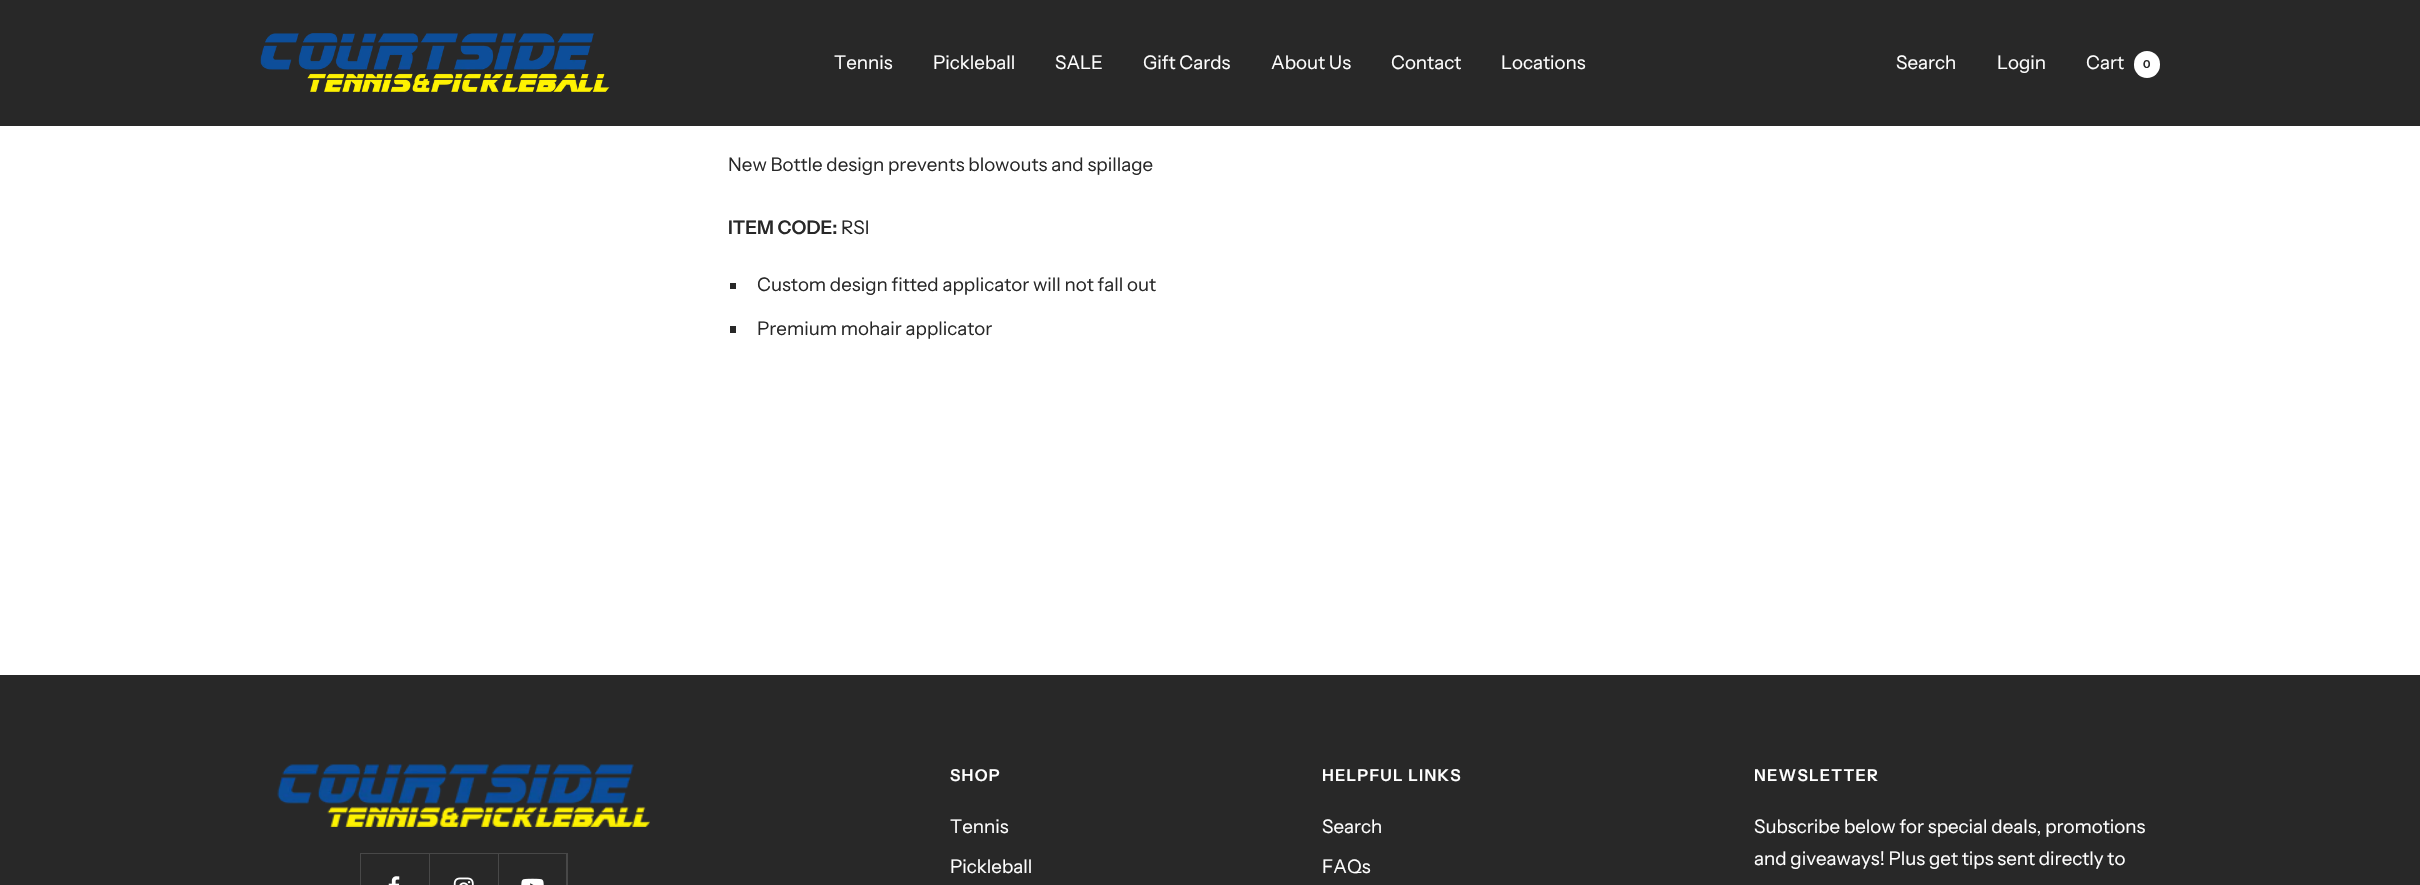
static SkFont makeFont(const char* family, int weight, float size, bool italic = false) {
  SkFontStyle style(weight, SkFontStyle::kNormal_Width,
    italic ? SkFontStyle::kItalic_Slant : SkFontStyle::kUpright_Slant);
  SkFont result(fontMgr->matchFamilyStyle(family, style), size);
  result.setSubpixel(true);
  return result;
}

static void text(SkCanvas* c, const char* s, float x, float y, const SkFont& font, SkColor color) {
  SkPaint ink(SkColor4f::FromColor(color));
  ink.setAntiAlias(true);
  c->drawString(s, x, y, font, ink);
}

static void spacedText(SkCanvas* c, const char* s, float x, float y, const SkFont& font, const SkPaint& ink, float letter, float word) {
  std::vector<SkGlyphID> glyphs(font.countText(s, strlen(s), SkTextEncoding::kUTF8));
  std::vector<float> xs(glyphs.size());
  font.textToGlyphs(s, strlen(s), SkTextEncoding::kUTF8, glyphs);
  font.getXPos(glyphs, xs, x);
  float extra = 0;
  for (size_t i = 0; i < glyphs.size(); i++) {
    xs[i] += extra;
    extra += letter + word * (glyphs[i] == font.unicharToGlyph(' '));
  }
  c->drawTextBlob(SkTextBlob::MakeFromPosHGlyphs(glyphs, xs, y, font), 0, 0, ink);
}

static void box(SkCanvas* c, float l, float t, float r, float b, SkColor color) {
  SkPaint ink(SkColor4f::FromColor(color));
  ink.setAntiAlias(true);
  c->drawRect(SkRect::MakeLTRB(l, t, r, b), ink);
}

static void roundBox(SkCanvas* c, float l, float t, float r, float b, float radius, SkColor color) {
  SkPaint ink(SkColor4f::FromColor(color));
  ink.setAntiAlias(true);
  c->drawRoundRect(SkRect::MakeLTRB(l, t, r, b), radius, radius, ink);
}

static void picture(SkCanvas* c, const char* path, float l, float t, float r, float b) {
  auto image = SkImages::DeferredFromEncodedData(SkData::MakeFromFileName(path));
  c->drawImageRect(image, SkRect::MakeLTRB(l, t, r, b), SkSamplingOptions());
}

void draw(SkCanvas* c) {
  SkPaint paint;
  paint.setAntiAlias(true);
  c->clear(0xffffffff);
  box(c, 0, 0, 2420, 126, 0xff282828);
  picture(c, "img_01.png", 260, 33, 610, 92);
  SkFont face1 = makeFont("Instrument Sans", 400, 18.75f);
  text(c, "Tennis", 834, 69, face1, 0xffffffff);
  text(c, "Pickleball", 933, 69, face1, 0xffffffff);
  text(c, "SALE", 1055, 69, face1, 0xffffffff);
  text(c, "Gift Cards", 1143, 69, face1, 0xffffffff);
  text(c, "About Us", 1271, 69, face1, 0xffffffff);
  text(c, "Contact", 1391, 69, face1, 0xffffffff);
  text(c, "Locations", 1501, 69, face1, 0xffffffff);
  text(c, "Search", 1896, 69, face1, 0xffffffff);
  text(c, "Login", 1997, 69, face1, 0xffffffff);
  text(c, "Cart", 2086, 69, face1, 0xffffffff);
  roundBox(c, 2134, 51, 2160, 78, 13, 0xffffffff);
  SkFont face2 = makeFont("Instrument Sans", 600, 11);
  text(c, "0", 2143, 68, face2, 0xff282828);
  text(c, "New Bottle design prevents blowouts and spillage", 728, 171, face1, 0xff282828);
  SkFont face3 = makeFont("Instrument Sans", 600, 18.75f);
  text(c, "ITEM CODE:", 728, 234, face3, 0xff282828);
  text(c, "RSI", 841, 234, face1, 0xff282828);
  box(c, 730, 283, 736, 289, 0xff282828);
  text(c, "Custom design fitted applicator will not fall out", 757, 291, face1, 0xff282828);
  box(c, 730, 326, 736, 333, 0xff282828);
  text(c, "Premium mohair applicator", 757, 335, face1, 0xff282828);
  box(c, 0, 675, 2420, 885, 0xff282828);
  picture(c, "img_02.png", 277, 764, 650, 827);
  box(c, 429, 853, 430, 885, 0xff484848);
  box(c, 360, 853, 498, 854, 0xff484848);
  box(c, 360, 853, 361, 885, 0xff484848);
  picture(c, "img_03.png", 388, 876, 400, 885);
  box(c, 498, 853, 499, 885, 0xff484848);
  picture(c, "img_04.png", 453, 877, 474, 885);
  box(c, 566, 853, 568, 885, 0xff484848);
  box(c, 498, 853, 566, 854, 0xff484848);
  picture(c, "img_05.png", 521, 878, 544, 885);
  SkFont face4 = makeFont("Instrument Sans", 600, 16.25f);
  paint.setColor(0xffffffff);
  spacedText(c, "SHOP", 950, 781, face4, paint, 1.25f, 0);
  text(c, "Tennis", 950, 833, face1, 0xffffffff);
  text(c, "Pickleball", 950, 873, face1, 0xffffffff);
  spacedText(c, "HELPFUL LINKS", 1322, 781, face4, paint, 1.25f, 0);
  text(c, "Search", 1322, 833, face1, 0xffffffff);
  text(c, "FAQs", 1322, 873, face1, 0xffffffff);
  spacedText(c, "NEWSLETTER", 1754, 781, face4, paint, 1.25f, 0);
  text(c, "Subscribe below for special deals, promotions", 1754, 833, face1, 0xffffffff);
  text(c, "and giveaways! Plus get tips sent directly to", 1754, 865, face1, 0xffffffff);
}
